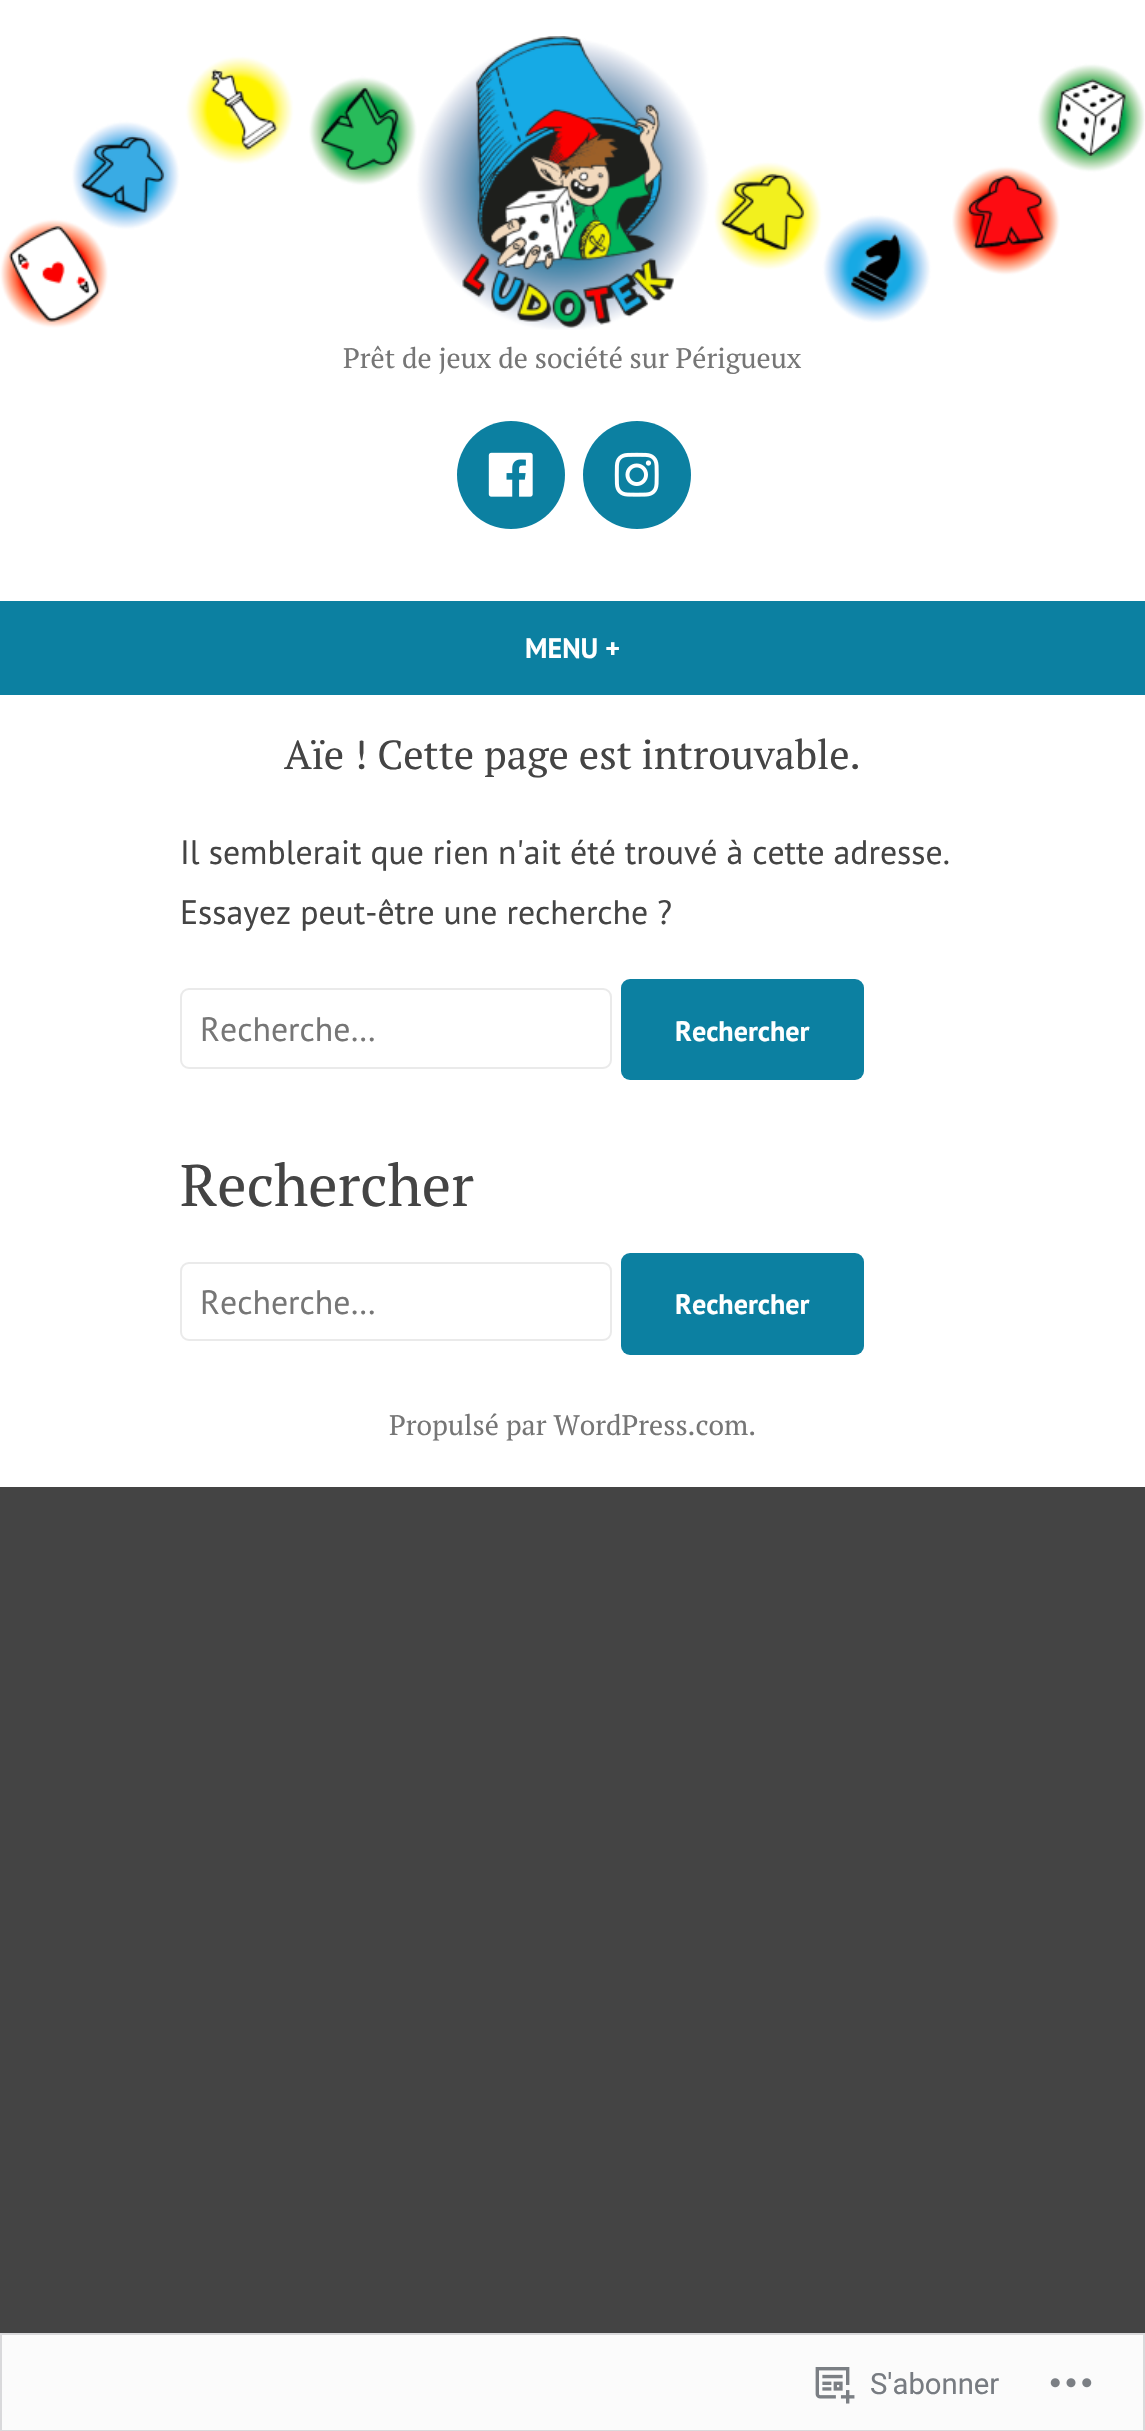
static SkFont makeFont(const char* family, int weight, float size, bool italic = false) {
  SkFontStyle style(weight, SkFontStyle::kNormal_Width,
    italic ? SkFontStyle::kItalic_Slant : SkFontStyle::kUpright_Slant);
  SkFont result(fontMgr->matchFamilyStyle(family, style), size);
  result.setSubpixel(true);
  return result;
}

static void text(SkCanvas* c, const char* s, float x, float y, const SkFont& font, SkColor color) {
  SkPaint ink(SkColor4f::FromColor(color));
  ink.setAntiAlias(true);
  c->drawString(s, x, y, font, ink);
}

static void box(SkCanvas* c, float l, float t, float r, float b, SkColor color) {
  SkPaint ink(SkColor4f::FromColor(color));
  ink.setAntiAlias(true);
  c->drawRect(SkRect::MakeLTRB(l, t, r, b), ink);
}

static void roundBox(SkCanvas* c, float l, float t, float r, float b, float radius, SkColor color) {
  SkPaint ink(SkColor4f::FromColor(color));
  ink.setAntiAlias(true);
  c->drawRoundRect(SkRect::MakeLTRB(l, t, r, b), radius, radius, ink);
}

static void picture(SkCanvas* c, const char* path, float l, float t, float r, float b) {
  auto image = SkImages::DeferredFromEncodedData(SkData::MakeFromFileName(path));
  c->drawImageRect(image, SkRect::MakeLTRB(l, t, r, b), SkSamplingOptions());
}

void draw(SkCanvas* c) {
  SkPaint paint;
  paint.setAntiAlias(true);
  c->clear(0xff444444);
  box(c, 0, 0, 1145, 1487, 0xffffffff);
  picture(c, "img_01.png", 0, 36, 1145, 330);
  SkFont face1 = makeFont("PT Serif", 400, 28.1f);
  text(c, "Prêt de jeux de société sur Périgueux", 343, 368, face1, 0xff767676);
  paint.setColor(0xff0c80a1);
  c->drawCircle(511, 475, 54, paint);
  picture(c, "img_02.png", 488, 452, 533, 497);
  c->drawCircle(637, 475, 54, paint);
  picture(c, "img_03.png", 614, 452, 659, 497);
  box(c, 0, 601, 1145, 695, 0xff0c80a1);
  SkFont face2 = makeFont("PT Sans", 700, 28.1f);
  text(c, "MENU +", 525, 658, face2, 0xffffffff);
  SkFont face3 = makeFont("PT Serif", 400, 40.5f);
  text(c, "Aïe ! Cette page est introuvable.", 284, 769, face3, 0xff444444);
  SkFont face4 = makeFont("PT Sans", 400, 33.75f);
  text(c, "Il semblerait que rien n'ait été trouvé à cette adresse.", 180, 864, face4, 0xff444444);
  text(c, "Essayez peut-être une recherche ?", 180, 924, face4, 0xff444444);
  paint.setStyle(SkPaint::kStroke_Style);
  paint.setStrokeWidth(2);
  paint.setColor(0xffeaeaea);
  c->drawRoundRect(SkRect::MakeLTRB(181, 989, 611, 1068), 8, 8, paint);
  text(c, "Recherche…", 200, 1041, face4, 0xff767676);
  roundBox(c, 621, 979, 864, 1080, 9, 0xff0c80a1);
  text(c, "Rechercher", 675, 1041, face2, 0xffffffff);
  SkFont face5 = makeFont("PT Serif", 400, 58.5f);
  text(c, "Rechercher", 180, 1206, face5, 0xff444444);
  c->drawRoundRect(SkRect::MakeLTRB(181, 1263, 611, 1340), 8, 8, paint);
  text(c, "Recherche…", 200, 1314, face4, 0xff767676);
  roundBox(c, 621, 1253, 864, 1355, 9, 0xff0c80a1);
  text(c, "Rechercher", 675, 1314, face2, 0xffffffff);
  text(c, "Propulsé par WordPress.com.", 389, 1435, face1, 0xff767676);
  paint.setStyle(SkPaint::kFill_Style);
  paint.setColor(0xfffbfbfb);
  c->drawRect(SkRect::MakeLTRB(1, 2334, 1144, 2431), paint);
  paint.setStyle(SkPaint::kStroke_Style);
  paint.setColor(0xffd9d9db);
  c->drawRect(SkRect::MakeLTRB(1, 2334, 1144, 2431), paint);
  picture(c, "img_04.png", 815, 2367, 855, 2404);
  SkFont face6 = makeFont("Roboto", 400, 29.25f);
  text(c, "S'abonner", 870, 2394, face6, 0xff777b81);
  picture(c, "img_05.png", 1050, 2378, 1092, 2388);
}
